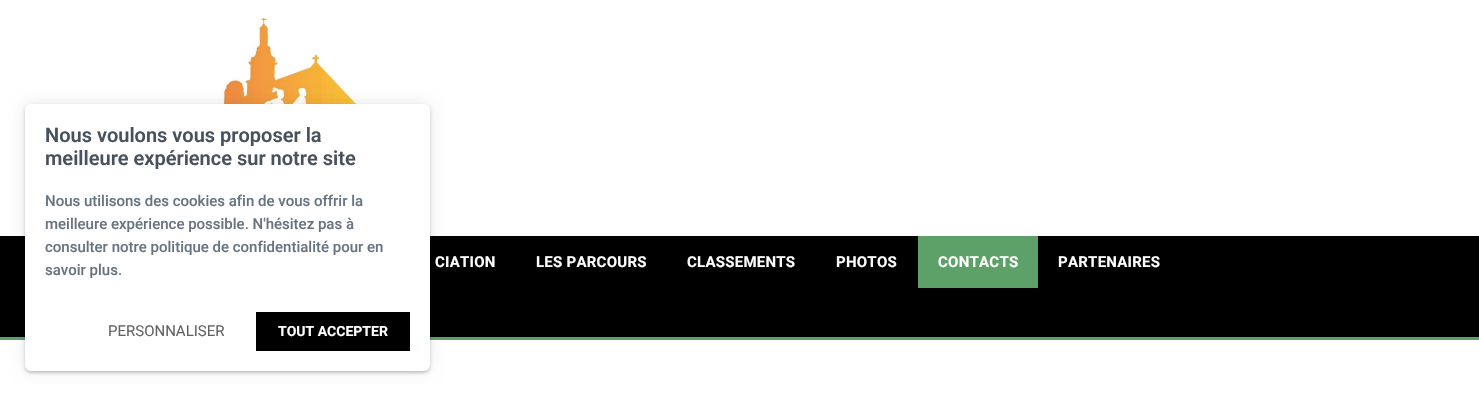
static SkFont makeFont(const char* family, int weight, float size, bool italic = false) {
  SkFontStyle style(weight, SkFontStyle::kNormal_Width,
    italic ? SkFontStyle::kItalic_Slant : SkFontStyle::kUpright_Slant);
  SkFont result(fontMgr->matchFamilyStyle(family, style), size);
  result.setSubpixel(true);
  return result;
}

static void text(SkCanvas* c, const char* s, float x, float y, const SkFont& font, SkColor color) {
  SkPaint ink(SkColor4f::FromColor(color));
  ink.setAntiAlias(true);
  c->drawString(s, x, y, font, ink);
}

static void spacedText(SkCanvas* c, const char* s, float x, float y, const SkFont& font, const SkPaint& ink, float letter, float word) {
  std::vector<SkGlyphID> glyphs(font.countText(s, strlen(s), SkTextEncoding::kUTF8));
  std::vector<float> xs(glyphs.size());
  font.textToGlyphs(s, strlen(s), SkTextEncoding::kUTF8, glyphs);
  font.getXPos(glyphs, xs, x);
  float extra = 0;
  for (size_t i = 0; i < glyphs.size(); i++) {
    xs[i] += extra;
    extra += letter + word * (glyphs[i] == font.unicharToGlyph(' '));
  }
  c->drawTextBlob(SkTextBlob::MakeFromPosHGlyphs(glyphs, xs, y, font), 0, 0, ink);
}

static void box(SkCanvas* c, float l, float t, float r, float b, SkColor color) {
  SkPaint ink(SkColor4f::FromColor(color));
  ink.setAntiAlias(true);
  c->drawRect(SkRect::MakeLTRB(l, t, r, b), ink);
}

static void roundBox(SkCanvas* c, float l, float t, float r, float b, float radius, SkColor color) {
  SkPaint ink(SkColor4f::FromColor(color));
  ink.setAntiAlias(true);
  c->drawRoundRect(SkRect::MakeLTRB(l, t, r, b), radius, radius, ink);
}

static void picture(SkCanvas* c, const char* path, float l, float t, float r, float b) {
  auto image = SkImages::DeferredFromEncodedData(SkData::MakeFromFileName(path));
  c->drawImageRect(image, SkRect::MakeLTRB(l, t, r, b), SkSamplingOptions());
}

void draw(SkCanvas* c) {
  SkPaint paint;
  paint.setAntiAlias(true);
  c->clear(0xffffffff);
  picture(c, "img_01.png", 181, 18, 371, 104);
  box(c, 0, 236, 1479, 337, 0xff000000);
  box(c, 0, 337, 1479, 340, 0xff5da168);
  paint.setColor(0x1a000000);
  paint.setMaskFilter(SkMaskFilter::MakeBlur(kNormal_SkBlurStyle, 7.5f));
  c->drawRoundRect(SkRect::MakeLTRB(25, 104, 430, 371), 6, 6, paint);
  paint.setMaskFilter(nullptr);
  paint.setColor(0x33000000);
  paint.setMaskFilter(SkMaskFilter::MakeBlur(kNormal_SkBlurStyle, 1.5f));
  c->drawRoundRect(SkRect::MakeLTRB(25, 106, 430, 373), 6, 6, paint);
  paint.setMaskFilter(nullptr);
  roundBox(c, 25, 104, 430, 371, 6, 0xffffffff);
  SkFont face1 = makeFont("Roboto", 600, 20);
  text(c, "Nous voulons vous proposer la", 45, 142, face1, 0xff48525e);
  text(c, "meilleure expérience sur notre site", 45, 165, face1, 0xff48525e);
  SkFont face2 = makeFont("Roboto", 500, 15);
  text(c, "Nous utilisons des cookies afin de vous offrir la", 45, 206, face2, 0xff677380);
  text(c, "meilleure expérience possible. N'hésitez pas à", 45, 229, face2, 0xff677380);
  text(c, "consulter notre politique de confidentialité pour en", 45, 252, face2, 0xff677380);
  text(c, "savoir plus.", 45, 275, face2, 0xff677380);
  SkFont face3 = makeFont("Roboto", 400, 15);
  text(c, "PERSONNALISER", 108, 336, face3, 0xff636363);
  box(c, 256, 312, 410, 351, 0xff000000);
  SkFont face4 = makeFont("Roboto", 700, 14);
  text(c, "TOUT ACCEPTER", 278, 336, face4, 0xffffffff);
  SkFont face5 = makeFont("Roboto", 700, 15);
  paint.setColor(0xffffffff);
  spacedText(c, "CIATION", 435, 267, face5, paint, 0.25f, 0);
  spacedText(c, "LES PARCOURS", 536, 267, face5, paint, 0.25f, 0);
  spacedText(c, "CLASSEMENTS", 687, 267, face5, paint, 0.25f, 0);
  spacedText(c, "PHOTOS", 836, 267, face5, paint, 0.25f, 0);
  box(c, 918, 236, 1038, 288, 0xff5da168);
  spacedText(c, "CONTACTS", 938, 267, face5, paint, 0.25f, 0);
  spacedText(c, "PARTENAIRES", 1058, 267, face5, paint, 0.25f, 0);
}
